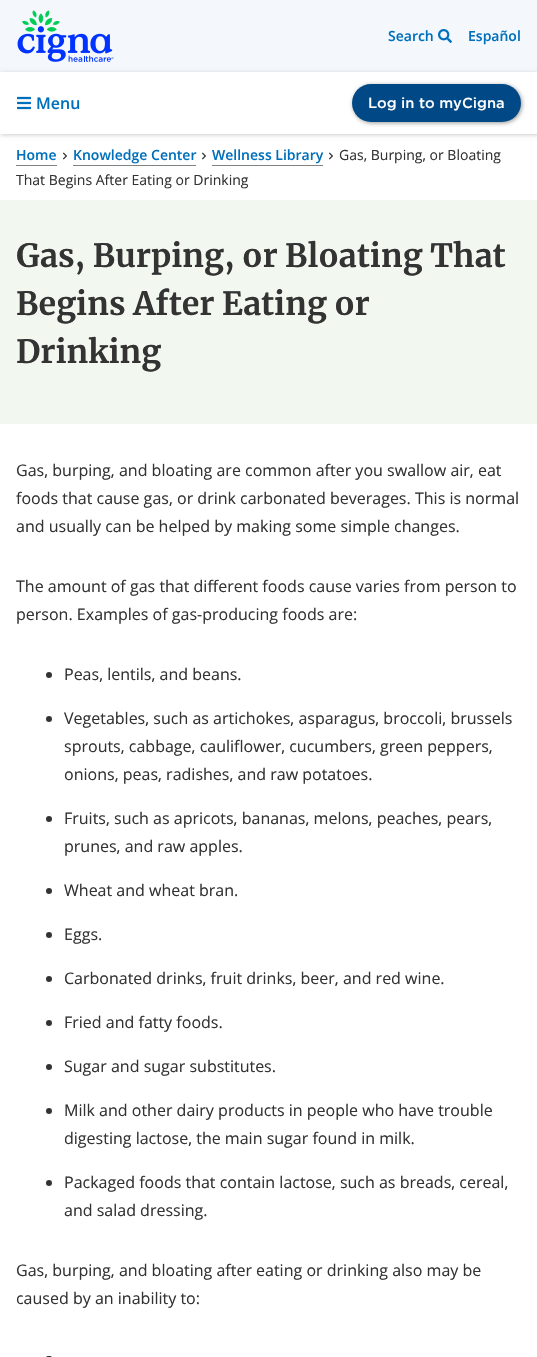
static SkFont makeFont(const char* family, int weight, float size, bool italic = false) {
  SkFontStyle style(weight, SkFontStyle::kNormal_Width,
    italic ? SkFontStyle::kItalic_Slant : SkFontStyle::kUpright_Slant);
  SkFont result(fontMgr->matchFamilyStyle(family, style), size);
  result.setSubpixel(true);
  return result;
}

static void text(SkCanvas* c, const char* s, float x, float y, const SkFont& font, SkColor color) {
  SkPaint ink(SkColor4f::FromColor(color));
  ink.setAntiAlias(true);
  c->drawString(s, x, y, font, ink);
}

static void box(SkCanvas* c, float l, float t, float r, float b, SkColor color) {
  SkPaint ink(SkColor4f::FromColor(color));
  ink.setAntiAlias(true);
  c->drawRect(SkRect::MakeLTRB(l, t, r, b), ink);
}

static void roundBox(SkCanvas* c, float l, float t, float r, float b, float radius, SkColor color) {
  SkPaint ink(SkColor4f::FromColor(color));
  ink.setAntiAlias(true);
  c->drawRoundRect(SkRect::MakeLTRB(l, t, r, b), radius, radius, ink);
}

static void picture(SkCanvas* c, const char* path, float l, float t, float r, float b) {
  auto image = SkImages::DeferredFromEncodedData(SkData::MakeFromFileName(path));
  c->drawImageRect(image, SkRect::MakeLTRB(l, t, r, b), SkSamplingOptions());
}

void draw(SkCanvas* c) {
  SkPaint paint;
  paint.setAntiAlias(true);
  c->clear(0xffffffff);
  box(c, 0, 0, 537, 72, 0xfff4f8fc);
  picture(c, "img_01.png", 17, 10, 114, 62);
  SkFont face1 = makeFont("Open Sans", 600, 14);
  text(c, "Search", 388, 41, face1, 0xff0170bc);
  picture(c, "img_02.png", 438, 29, 452, 43);
  text(c, "Español", 468, 41, face1, 0xff0170bc);
  c->save();
  c->clipPath(SkPathBuilder(SkPathFillType::kEvenOdd).moveTo(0, 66).lineTo(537, 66).lineTo(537, 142).lineTo(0, 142).close().moveTo(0, 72).lineTo(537, 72).lineTo(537, 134).lineTo(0, 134).close().detach(), true);
  paint.setColor(0x33000000);
  paint.setMaskFilter(SkMaskFilter::MakeBlur(kNormal_SkBlurStyle, 2));
  c->drawRect(SkRect::MakeLTRB(1, 73, 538, 135), paint);
  paint.setMaskFilter(nullptr);
  c->restore();
  picture(c, "img_03.png", 17, 96, 31, 110);
  SkFont face2 = makeFont("Open Sans", 600, 16);
  text(c, "Menu", 36, 109, face2, 0xff0170bc);
  paint.setColor(0x66000000);
  paint.setMaskFilter(SkMaskFilter::MakeBlur(kNormal_SkBlurStyle, 2));
  c->drawRoundRect(SkRect::MakeLTRB(353, 85, 522, 123), 19, 19, paint);
  paint.setMaskFilter(nullptr);
  roundBox(c, 352, 84, 521, 122, 19, 0xff004986);
  SkFont face3 = makeFont("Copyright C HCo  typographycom", 300, 14);
  text(c, "Log in to myCigna", 368, 108, face3, 0xffffffff);
  box(c, 16, 165, 57, 166, 0xff818283);
  text(c, "Home", 16, 160, face1, 0xff0170bc);
  picture(c, "img_04.png", 63, 152, 67, 160);
  box(c, 73, 165, 196, 166, 0xff818283);
  text(c, "Knowledge Center", 73, 160, face1, 0xff0170bc);
  picture(c, "img_04.png", 202, 152, 206, 160);
  box(c, 212, 165, 323, 166, 0xff818283);
  text(c, "Wellness Library", 212, 160, face1, 0xff0170bc);
  picture(c, "img_04.png", 329, 152, 333, 160);
  SkFont face4 = makeFont("Open Sans", 400, 14);
  text(c, "Gas, Burping, or Bloating", 339, 160, face4, 0xff333333);
  text(c, "That Begins After Eating or Drinking", 16, 185, face4, 0xff333333);
  box(c, 0, 200, 537, 424, 0xfff2f8ef);
  SkFont face5 = makeFont("Merriweather", 700, 32);
  text(c, "Gas, Burping, or Bloating That", 16, 267, face5, 0xff333333);
  text(c, "Begins After Eating or", 16, 315, face5, 0xff333333);
  text(c, "Drinking", 16, 363, face5, 0xff333333);
  SkFont face6 = makeFont("Open Sans", 400, 16);
  text(c, "Gas, burping, and bloating are common after you swallow air, eat", 16, 476, face6, 0xff333333);
  text(c, "foods that cause gas, or drink carbonated beverages. This is normal", 16, 504, face6, 0xff333333);
  text(c, "and usually can be helped by making some simple changes.", 16, 532, face6, 0xff333333);
  text(c, "The amount of gas that different foods cause varies from person to", 16, 592, face6, 0xff333333);
  text(c, "person. Examples of gas-producing foods are:", 16, 620, face6, 0xff333333);
  paint.setColor(0xff333333);
  c->drawCircle(49, 675, 3, paint);
  text(c, "Peas, lentils, and beans.", 64, 680, face6, 0xff333333);
  c->drawCircle(49, 719, 3, paint);
  text(c, "Vegetables, such as artichokes, asparagus, broccoli, brussels", 64, 724, face6, 0xff333333);
  text(c, "sprouts, cabbage, cauliflower, cucumbers, green peppers,", 64, 752, face6, 0xff333333);
  text(c, "onions, peas, radishes, and raw potatoes.", 64, 780, face6, 0xff333333);
  c->drawCircle(49, 819, 3, paint);
  text(c, "Fruits, such as apricots, bananas, melons, peaches, pears,", 64, 824, face6, 0xff333333);
  text(c, "prunes, and raw apples.", 64, 852, face6, 0xff333333);
  c->drawCircle(49, 891, 3, paint);
  text(c, "Wheat and wheat bran.", 64, 896, face6, 0xff333333);
  c->drawCircle(49, 935, 3, paint);
  text(c, "Eggs.", 64, 940, face6, 0xff333333);
  c->drawCircle(49, 979, 3, paint);
  text(c, "Carbonated drinks, fruit drinks, beer, and red wine.", 64, 984, face6, 0xff333333);
  c->drawCircle(49, 1023, 3, paint);
  text(c, "Fried and fatty foods.", 64, 1028, face6, 0xff333333);
  c->drawCircle(49, 1067, 3, paint);
  text(c, "Sugar and sugar substitutes.", 64, 1072, face6, 0xff333333);
  c->drawCircle(49, 1111, 3, paint);
  text(c, "Milk and other dairy products in people who have trouble", 64, 1116, face6, 0xff333333);
  text(c, "digesting lactose, the main sugar found in milk.", 64, 1144, face6, 0xff333333);
  c->drawCircle(49, 1183, 3, paint);
  text(c, "Packaged foods that contain lactose, such as breads, cereal,", 64, 1188, face6, 0xff333333);
  text(c, "and salad dressing.", 64, 1216, face6, 0xff333333);
  text(c, "Gas, burping, and bloating after eating or drinking also may be", 16, 1276, face6, 0xff333333);
  text(c, "caused by an inability to:", 16, 1304, face6, 0xff333333);
  roundBox(c, 46, 1356, 52, 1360, 3, 0xff333333);
}
